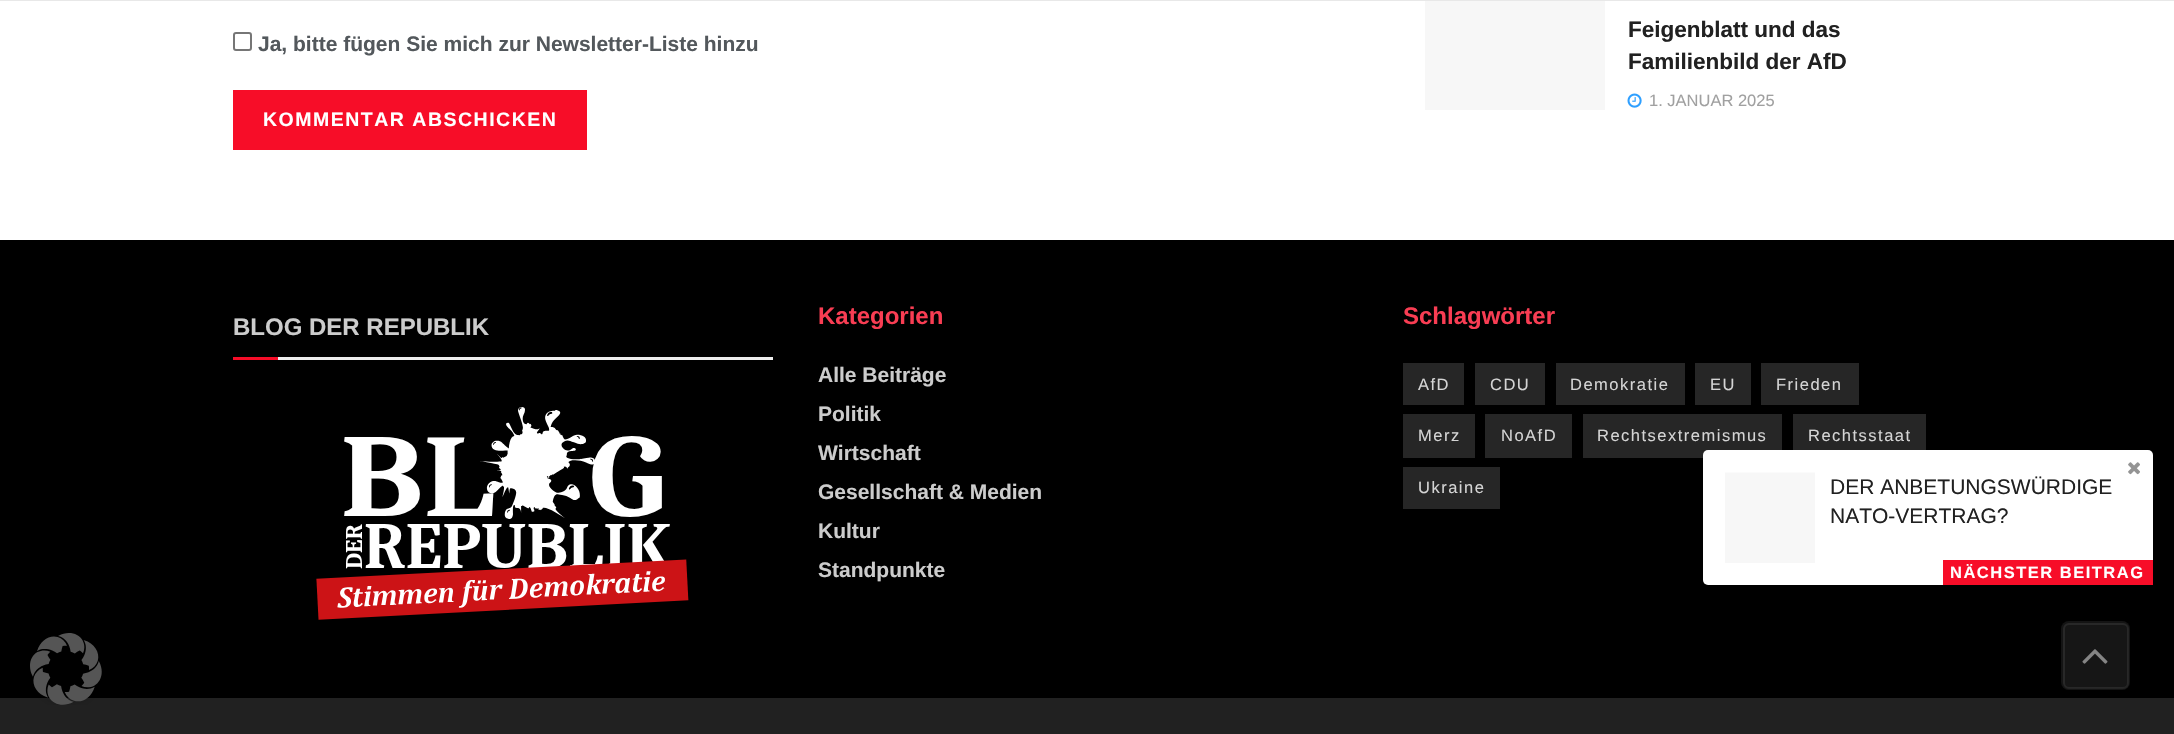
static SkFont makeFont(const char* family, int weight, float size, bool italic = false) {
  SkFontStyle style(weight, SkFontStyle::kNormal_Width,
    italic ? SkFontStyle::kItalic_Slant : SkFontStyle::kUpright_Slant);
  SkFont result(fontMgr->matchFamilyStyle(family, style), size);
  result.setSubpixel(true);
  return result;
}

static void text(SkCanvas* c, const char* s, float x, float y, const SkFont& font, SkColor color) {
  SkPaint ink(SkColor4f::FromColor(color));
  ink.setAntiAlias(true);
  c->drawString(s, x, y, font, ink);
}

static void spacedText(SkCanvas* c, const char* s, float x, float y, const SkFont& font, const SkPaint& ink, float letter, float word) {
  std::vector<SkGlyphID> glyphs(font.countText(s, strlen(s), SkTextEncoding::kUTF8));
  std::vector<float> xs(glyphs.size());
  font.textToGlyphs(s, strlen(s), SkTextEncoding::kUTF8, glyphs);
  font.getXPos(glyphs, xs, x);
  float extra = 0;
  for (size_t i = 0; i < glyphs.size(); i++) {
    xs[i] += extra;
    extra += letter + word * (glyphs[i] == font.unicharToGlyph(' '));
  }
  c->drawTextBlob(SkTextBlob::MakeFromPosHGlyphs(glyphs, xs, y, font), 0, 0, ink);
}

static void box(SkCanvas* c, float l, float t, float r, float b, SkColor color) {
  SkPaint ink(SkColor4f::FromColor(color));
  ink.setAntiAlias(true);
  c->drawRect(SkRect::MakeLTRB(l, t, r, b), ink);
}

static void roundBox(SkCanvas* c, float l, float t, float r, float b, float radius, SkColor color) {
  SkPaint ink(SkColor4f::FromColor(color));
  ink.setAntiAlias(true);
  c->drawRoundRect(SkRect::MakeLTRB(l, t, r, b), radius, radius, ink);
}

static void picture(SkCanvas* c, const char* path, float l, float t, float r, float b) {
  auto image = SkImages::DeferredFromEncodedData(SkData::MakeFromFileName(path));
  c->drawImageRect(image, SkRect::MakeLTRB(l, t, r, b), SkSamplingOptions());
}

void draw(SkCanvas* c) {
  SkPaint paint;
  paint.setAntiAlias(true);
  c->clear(0xffffffff);
  box(c, 0, 0, 2174, 1, 0xffe8e8e8);
  box(c, 1425, 1, 1605, 110, 0xfff7f7f7);
  SkFont face1 = makeFont("Liberation Sans", 700, 22.5f);
  text(c, "Feigenblatt und das", 1628, 37, face1, 0xff212121);
  text(c, "Familienbild der AfD", 1628, 69, face1, 0xff212121);
  picture(c, "img_01.png", 1627, 93, 1642, 108);
  SkFont face2 = makeFont("Liberation Sans", 400, 16.5f);
  text(c, "1. JANUAR 2025", 1649, 106, face2, 0xffa0a0a0);
  paint.setStyle(SkPaint::kStroke_Style);
  paint.setStrokeWidth(2);
  paint.setColor(0xff767676);
  c->drawRoundRect(SkRect::MakeLTRB(234, 33, 251, 50), 2, 2, paint);
  SkFont face3 = makeFont("Liberation Sans", 700, 21);
  text(c, "Ja, bitte fügen Sie mich zur Newsletter-Liste hinzu", 258, 51, face3, 0xff53585c);
  box(c, 233, 90, 587, 150, 0xfff70d28);
  SkFont face4 = makeFont("Liberation Sans", 700, 19.5f);
  paint.setStyle(SkPaint::kFill_Style);
  paint.setColor(0xffffffff);
  spacedText(c, "KOMMENTAR ABSCHICKEN", 263, 126, face4, paint, 1.5f, 0);
  box(c, 0, 240, 2174, 698, 0xff000000);
  box(c, 1583, 414, 1782, 458, 0xff262626);
  roundBox(c, 1703, 450, 2153, 585, 5, 0xffffffff);
  picture(c, "img_02.png", 2128, 462, 2140, 475);
  box(c, 1725, 473, 1815, 563, 0xfff7f7f7);
  box(c, 1725, 472, 1815, 473, 0xfffbfbfb);
  SkFont face5 = makeFont("Liberation Sans", 400, 21);
  text(c, "DER ANBETUNGSWÜRDIGE", 1830, 494, face5, 0xff212121);
  text(c, "NATO-VERTRAG?", 1830, 523, face5, 0xff212121);
  box(c, 1943, 560, 2153, 585, 0xfff70d28);
  SkFont face6 = makeFont("Liberation Sans", 700, 16.5f);
  spacedText(c, "NÄCHSTER BEITRAG", 1950, 578, face6, paint, 1.5f, 0);
  box(c, 278, 357, 773, 360, 0xffeeeeee);
  SkFont face7 = makeFont("Liberation Sans", 700, 24);
  text(c, "BLOG DER REPUBLIK", 233, 335, face7, 0xffcccccc);
  box(c, 233, 357, 278, 360, 0xfff70d28);
  picture(c, "img_03.png", 316, 407, 689, 620);
  text(c, "Kategorien", 818, 324, face7, 0xfff93d53);
  text(c, "Alle Beiträge", 818, 382, face3, 0xffcccccc);
  text(c, "Politik", 818, 421, face3, 0xffcccccc);
  text(c, "Wirtschaft", 818, 460, face3, 0xffcccccc);
  text(c, "Gesellschaft & Medien", 818, 499, face3, 0xffcccccc);
  text(c, "Kultur", 818, 538, face3, 0xffcccccc);
  text(c, "Standpunkte", 818, 577, face3, 0xffcccccc);
  text(c, "Schlagwörter", 1403, 324, face7, 0xfff93d53);
  box(c, 1403, 363, 1464, 405, 0xff262626);
  paint.setColor(0xffd4d4d4);
  spacedText(c, "AfD", 1418, 390, face2, paint, 1.5f, 0);
  box(c, 1475, 363, 1545, 405, 0xff262626);
  spacedText(c, "CDU", 1490, 390, face2, paint, 1.5f, 0);
  box(c, 1556, 363, 1685, 405, 0xff262626);
  spacedText(c, "Demokratie", 1570, 390, face2, paint, 1.5f, 0);
  box(c, 1695, 363, 1751, 405, 0xff262626);
  spacedText(c, "EU", 1710, 390, face2, paint, 1.5f, 0);
  box(c, 1761, 363, 1859, 405, 0xff262626);
  spacedText(c, "Frieden", 1776, 390, face2, paint, 1.5f, 0);
  box(c, 1403, 414, 1475, 458, 0xff262626);
  spacedText(c, "Merz", 1418, 441, face2, paint, 1.5f, 0);
  box(c, 1485, 414, 1572, 458, 0xff262626);
  spacedText(c, "NoAfD", 1501, 441, face2, paint, 1.5f, 0);
  spacedText(c, "Rechtsextremismus", 1597, 441, face2, paint, 1.5f, 0);
  box(c, 1793, 414, 1926, 450, 0xff262626);
  spacedText(c, "Rechtsstaat", 1808, 441, face2, paint, 1.5f, 0);
  box(c, 1403, 467, 1500, 509, 0xff262626);
  spacedText(c, "Ukraine", 1418, 493, face2, paint, 1.5f, 0);
  box(c, 0, 698, 2174, 734, 0xff212121);
  roundBox(c, 2061, 621, 2130, 690, 8, 0xff161616);
  paint.setStyle(SkPaint::kStroke_Style);
  paint.setColor(0xff282828);
  c->drawRoundRect(SkRect::MakeLTRB(2064, 624, 2128, 688), 5, 5, paint);
  paint.setColor(0x1c000000);
  c->drawRoundRect(SkRect::MakeLTRB(2062, 622, 2129, 689), 7, 7, paint);
  picture(c, "img_04.png", 2082, 649, 2108, 664);
  picture(c, "img_05.png", 30, 633, 102, 705);
}
